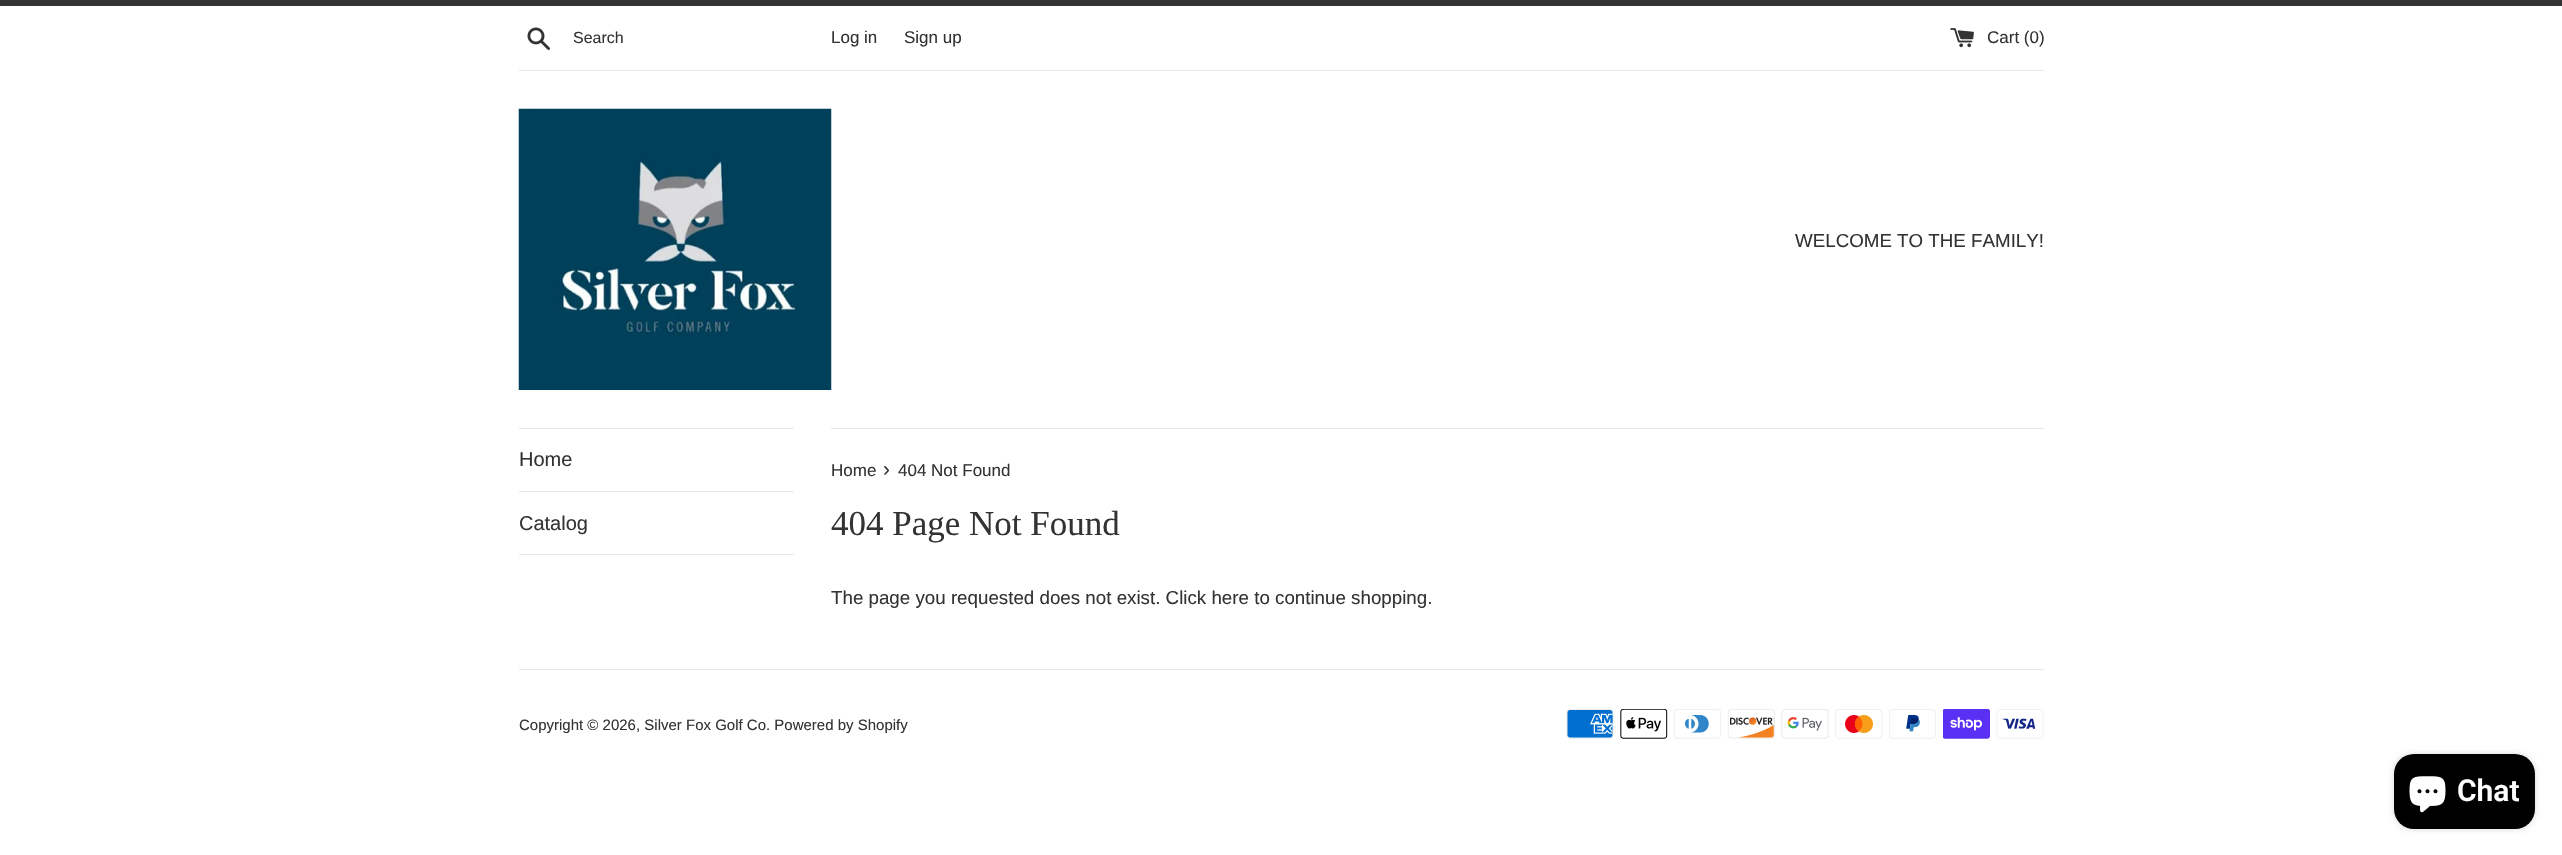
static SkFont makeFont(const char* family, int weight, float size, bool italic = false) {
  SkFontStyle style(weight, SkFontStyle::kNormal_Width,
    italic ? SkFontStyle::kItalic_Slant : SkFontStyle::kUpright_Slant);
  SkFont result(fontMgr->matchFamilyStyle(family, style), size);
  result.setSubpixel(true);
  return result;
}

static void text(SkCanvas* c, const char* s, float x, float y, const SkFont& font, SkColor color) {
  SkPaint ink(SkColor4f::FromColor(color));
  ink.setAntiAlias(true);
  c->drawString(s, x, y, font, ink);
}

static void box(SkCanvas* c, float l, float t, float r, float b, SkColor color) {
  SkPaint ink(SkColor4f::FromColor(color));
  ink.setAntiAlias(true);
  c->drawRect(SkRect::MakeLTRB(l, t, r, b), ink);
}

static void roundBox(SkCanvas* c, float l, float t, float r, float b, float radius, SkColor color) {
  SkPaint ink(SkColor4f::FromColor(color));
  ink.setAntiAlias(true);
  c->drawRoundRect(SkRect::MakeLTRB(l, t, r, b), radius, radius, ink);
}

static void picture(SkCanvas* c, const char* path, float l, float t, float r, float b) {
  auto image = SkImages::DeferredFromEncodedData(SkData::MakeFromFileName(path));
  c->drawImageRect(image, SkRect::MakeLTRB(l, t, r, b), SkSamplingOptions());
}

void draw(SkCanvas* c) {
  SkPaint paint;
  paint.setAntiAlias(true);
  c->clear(0xffffffff);
  box(c, 0, 0, 2562, 6, 0xff333333);
  picture(c, "img_01.png", 527, 27, 550, 50);
  SkFont face1 = makeFont("Liberation Sans", 400, 16);
  text(c, "Search", 573, 43, face1, 0xff333333);
  SkFont face2 = makeFont("Liberation Sans", 400, 17);
  text(c, "Log in", 831, 43, face2, 0xff333333);
  text(c, "Sign up", 904, 43, face2, 0xff333333);
  picture(c, "img_02.png", 1950, 28, 1974, 48);
  text(c, "Cart (0)", 1987, 43, face2, 0xff333333);
  box(c, 519, 70, 2044, 71, 0xffe8e8e8);
  picture(c, "img_03.png", 518, 108, 832, 390);
  SkFont face3 = makeFont("Liberation Sans", 400, 18.75f);
  text(c, "WELCOME TO THE FAMILY!", 1795, 247, face3, 0xff333333);
  box(c, 519, 428, 794, 429, 0xffe8e8e8);
  box(c, 519, 491, 794, 492, 0xffe8e8e8);
  SkFont face4 = makeFont("Liberation Sans", 400, 20);
  text(c, "Home", 519, 466, face4, 0xff333333);
  box(c, 519, 554, 794, 555, 0xffe8e8e8);
  text(c, "Catalog", 519, 530, face4, 0xff333333);
  box(c, 831, 428, 2044, 429, 0xffe8e8e8);
  text(c, "Home", 831, 476, face2, 0xff333333);
  SkFont face5 = makeFont("Liberation Sans", 400, 21);
  text(c, "›", 883, 476, face5, 0xff333333);
  text(c, "404 Not Found", 898, 476, face2, 0xff333333);
  SkFont face6 = makeFont("Liberation Serif", 400, 35);
  text(c, "404 Page Not Found", 831, 535, face6, 0xff333333);
  text(c, "The page you requested does not exist. Click here to continue shopping.", 831, 604, face3, 0xff333333);
  box(c, 519, 669, 2044, 670, 0xffe8e8e8);
  SkFont face7 = makeFont("Liberation Sans", 400, 15);
  text(c, "Copyright © 2026, Silver Fox Golf Co. Powered by Shopify", 519, 730, face7, 0xff333333);
  picture(c, "img_04.png", 1566, 709, 1614, 739);
  picture(c, "img_05.png", 1620, 709, 1668, 739);
  picture(c, "img_06.png", 1674, 709, 1721, 739);
  picture(c, "img_07.png", 1728, 709, 1775, 739);
  picture(c, "img_08.png", 1781, 709, 1829, 739);
  picture(c, "img_09.png", 1835, 709, 1883, 739);
  picture(c, "img_10.png", 1889, 709, 1936, 739);
  picture(c, "img_11.png", 1943, 709, 1990, 739);
  picture(c, "img_12.png", 1996, 709, 2044, 739);
  paint.setColor(0x26000000);
  paint.setMaskFilter(SkMaskFilter::MakeBlur(kNormal_SkBlurStyle, 3));
  c->drawRoundRect(SkRect::MakeLTRB(2394, 754, 2535, 829), 20, 20, paint);
  paint.setMaskFilter(nullptr);
  roundBox(c, 2394, 754, 2535, 829, 20, 0xff000000);
  picture(c, "img_13.png", 2409, 776, 2446, 813);
  SkFont face8 = makeFont("Roboto", 600, 30);
  text(c, "Chat", 2457, 801, face8, 0xffffffff);
}
